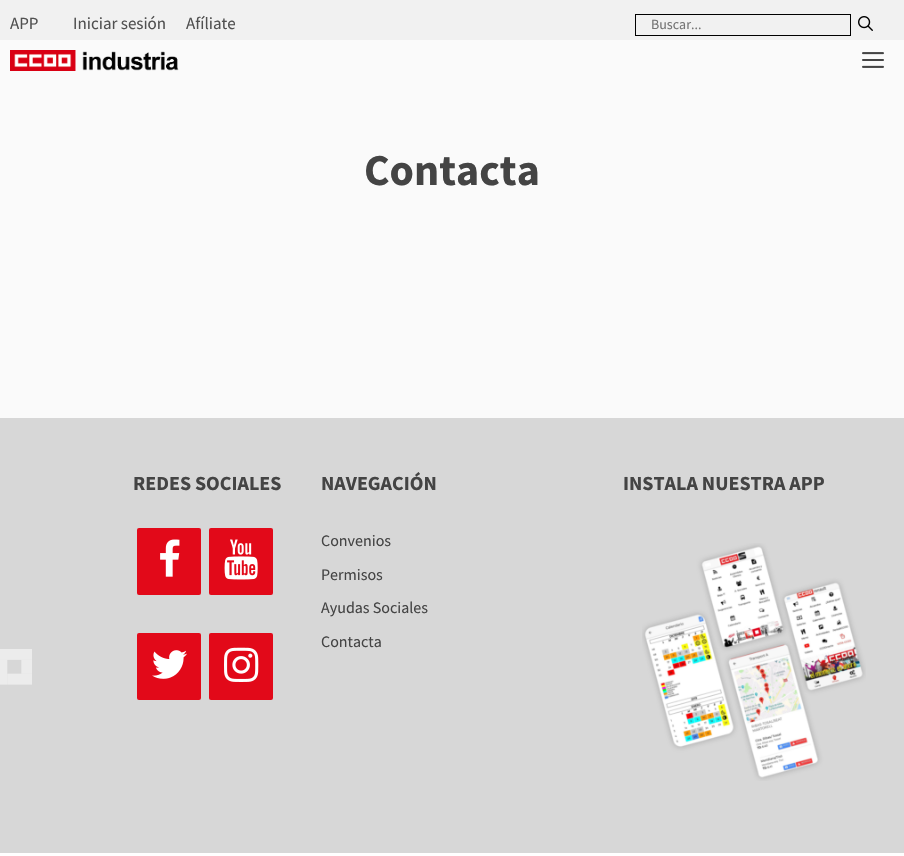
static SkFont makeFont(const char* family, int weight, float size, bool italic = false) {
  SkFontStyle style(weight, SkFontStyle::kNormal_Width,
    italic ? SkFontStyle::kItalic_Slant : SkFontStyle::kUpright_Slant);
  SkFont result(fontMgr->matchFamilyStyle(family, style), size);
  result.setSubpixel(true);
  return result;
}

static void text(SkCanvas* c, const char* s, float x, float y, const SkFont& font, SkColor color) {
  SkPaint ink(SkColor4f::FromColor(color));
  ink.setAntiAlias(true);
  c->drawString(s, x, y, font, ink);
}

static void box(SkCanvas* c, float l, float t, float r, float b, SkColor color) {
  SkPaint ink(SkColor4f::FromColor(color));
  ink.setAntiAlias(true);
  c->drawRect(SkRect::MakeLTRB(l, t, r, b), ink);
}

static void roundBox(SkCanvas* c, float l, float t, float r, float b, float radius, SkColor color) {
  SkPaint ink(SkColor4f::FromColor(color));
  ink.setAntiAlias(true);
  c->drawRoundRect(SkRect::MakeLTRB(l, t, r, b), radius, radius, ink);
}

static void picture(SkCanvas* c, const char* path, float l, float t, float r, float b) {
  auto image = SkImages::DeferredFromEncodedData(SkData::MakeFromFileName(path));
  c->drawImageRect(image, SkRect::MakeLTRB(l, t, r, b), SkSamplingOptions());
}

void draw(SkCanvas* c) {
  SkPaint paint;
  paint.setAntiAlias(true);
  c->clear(0xfffafafa);
  box(c, 0, 0, 904, 40, 0xfff1f1f1);
  SkFont face1 = makeFont("Source Sans Pro", 400, 17);
  text(c, "APP", 10, 29, face1, 0xff515151);
  text(c, "Iniciar sesión", 73, 29, face1, 0xff515151);
  text(c, "Afíliate", 186, 29, face1, 0xff515151);
  paint.setStyle(SkPaint::kStroke_Style);
  paint.setStrokeWidth(1);
  paint.setColor(0xff000000);
  c->drawRect(SkRect::MakeLTRB(635.5f, 14.5f, 850.5f, 35.5f), paint);
  SkFont face2 = makeFont("Source Sans Pro", 400, 14);
  text(c, "Buscar...", 651, 29, face2, 0xff757575);
  picture(c, "img_01.png", 858, 16, 873, 31);
  picture(c, "img_02.png", 10, 50, 179, 71);
  picture(c, "img_03.png", 862, 52, 884, 68);
  SkFont face3 = makeFont("Source Sans Pro", 700, 44);
  text(c, "Contacta", 364, 185, face3, 0xff444444);
  box(c, 0, 418, 904, 853, 0xffd7d7d7);
  picture(c, "img_04.png", 0, 649, 32, 685);
  SkFont face4 = makeFont("Source Sans Pro", 700, 20);
  text(c, "REDES SOCIALES", 133, 490, face4, 0xff444444);
  roundBox(c, 137, 528, 201, 595, 2, 0xffe20919);
  picture(c, "img_05.png", 160, 539, 180, 577);
  roundBox(c, 209, 528, 273, 595, 2, 0xffe20919);
  picture(c, "img_06.png", 224, 539, 258, 580);
  roundBox(c, 137, 633, 201, 700, 2, 0xffe20919);
  picture(c, "img_07.png", 152, 650, 187, 679);
  roundBox(c, 209, 633, 273, 700, 2, 0xffe20919);
  picture(c, "img_08.png", 224, 647, 259, 682);
  text(c, "NAVEGACIÓN", 321, 490, face4, 0xff444444);
  SkFont face5 = makeFont("Source Sans Pro", 400, 16);
  text(c, "Convenios", 321, 546, face5, 0xff444444);
  text(c, "Permisos", 321, 580, face5, 0xff444444);
  text(c, "Ayudas Sociales", 321, 613, face5, 0xff444444);
  text(c, "Contacta", 321, 647, face5, 0xff444444);
  text(c, "INSTALA NUESTRA APP", 623, 490, face4, 0xff444444);
  picture(c, "img_09.png", 642, 543, 866, 781);
  box(c, 0, 853, 904, 856, 0xffffffff);
}
